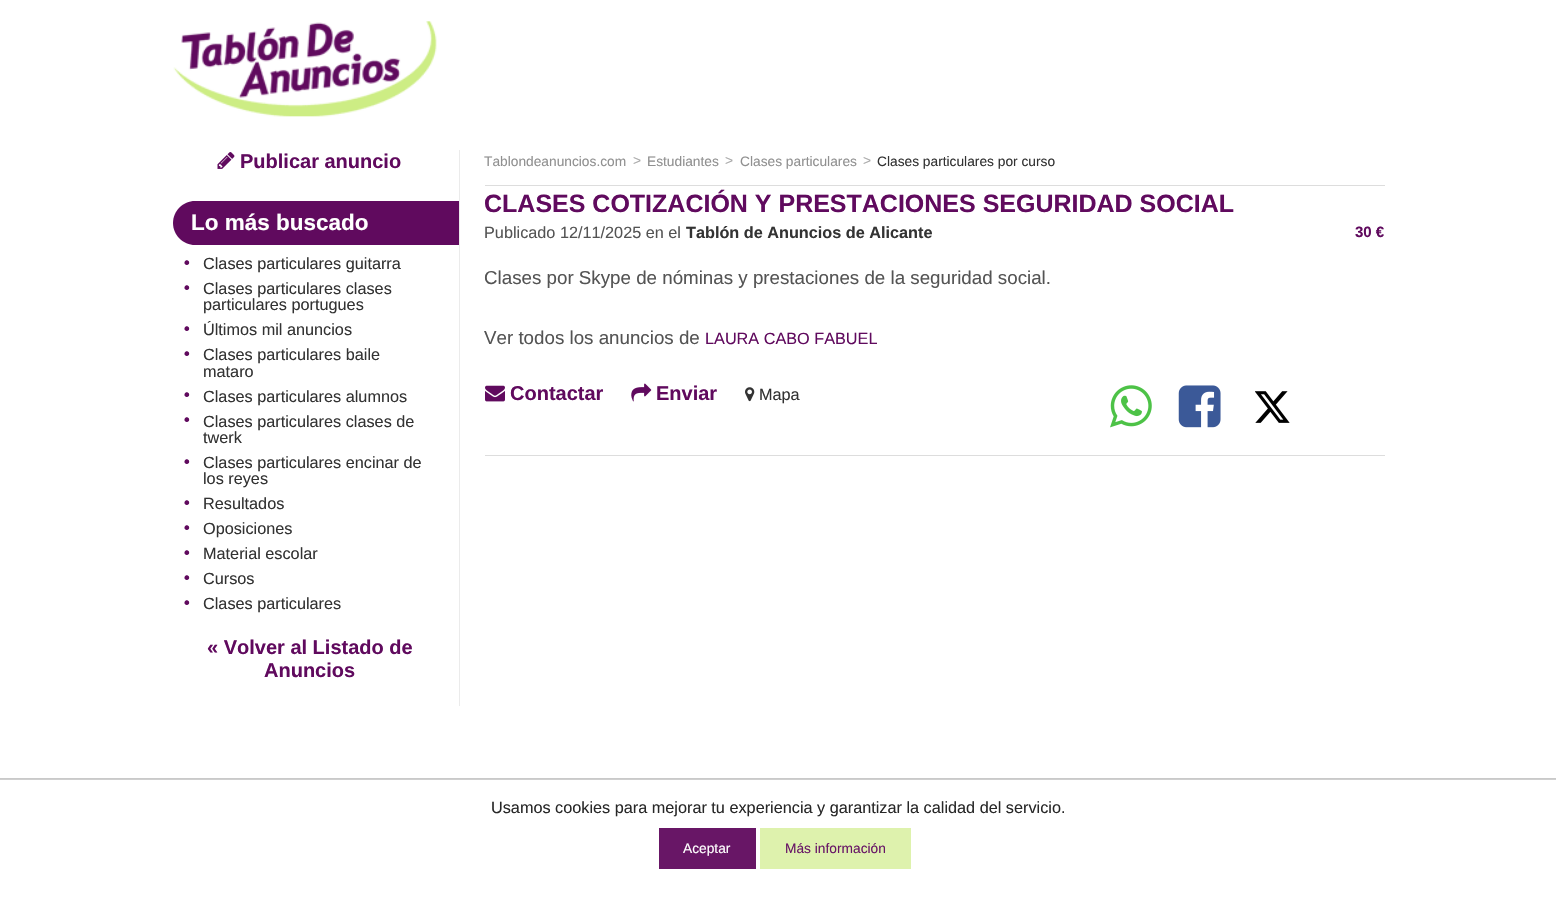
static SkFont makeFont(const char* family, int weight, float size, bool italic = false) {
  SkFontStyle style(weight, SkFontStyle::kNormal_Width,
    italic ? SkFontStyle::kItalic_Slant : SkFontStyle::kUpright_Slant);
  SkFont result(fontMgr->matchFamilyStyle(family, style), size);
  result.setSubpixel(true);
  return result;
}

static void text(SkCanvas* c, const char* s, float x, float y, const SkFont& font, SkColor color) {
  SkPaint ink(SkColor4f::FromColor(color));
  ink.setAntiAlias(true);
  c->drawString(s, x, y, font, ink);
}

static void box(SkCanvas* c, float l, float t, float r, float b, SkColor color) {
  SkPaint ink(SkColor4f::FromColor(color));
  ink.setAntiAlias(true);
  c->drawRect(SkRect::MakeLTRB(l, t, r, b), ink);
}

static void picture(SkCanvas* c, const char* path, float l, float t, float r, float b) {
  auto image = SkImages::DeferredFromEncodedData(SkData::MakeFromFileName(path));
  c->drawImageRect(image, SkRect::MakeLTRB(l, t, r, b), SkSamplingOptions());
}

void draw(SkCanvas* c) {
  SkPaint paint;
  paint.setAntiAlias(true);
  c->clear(0xffffffff);
  picture(c, "img_01.png", 173, 21, 437, 117);
  picture(c, "img_02.png", 217, 152, 235, 169);
  SkFont face1 = makeFont("Liberation Sans", 700, 20);
  text(c, "Publicar anuncio", 240, 168, face1, 0xff600a5e);
  paint.setColor(0xff600a5e);
  c->drawPath(SkPathBuilder().moveTo(195, 201).lineTo(460, 201).lineTo(460, 245).lineTo(195, 245).cubicTo(183, 245, 173, 235, 173, 223).cubicTo(173, 211, 183, 201, 195, 201).close().detach(), paint);
  box(c, 459, 150, 460, 706, 0xffebebeb);
  SkFont face2 = makeFont("Liberation Sans", 700, 22.5f);
  text(c, "Lo más buscado", 191, 230, face2, 0xffffffff);
  SkFont face3 = makeFont("Liberation Sans", 700, 16.25f);
  text(c, "•", 184, 268, face3, 0xff600a5e);
  SkFont face4 = makeFont("Liberation Sans", 400, 16.25f);
  text(c, "Clases particulares guitarra", 203, 269, face4, 0xff333333);
  text(c, "•", 184, 293, face3, 0xff600a5e);
  text(c, "Clases particulares clases", 203, 294, face4, 0xff333333);
  text(c, "particulares portugues", 203, 310, face4, 0xff333333);
  text(c, "•", 184, 334, face3, 0xff600a5e);
  text(c, "Últimos mil anuncios", 203, 335, face4, 0xff333333);
  text(c, "•", 184, 359, face3, 0xff600a5e);
  text(c, "Clases particulares baile", 203, 360, face4, 0xff333333);
  text(c, "mataro", 203, 377, face4, 0xff333333);
  text(c, "•", 184, 400, face3, 0xff600a5e);
  text(c, "Clases particulares alumnos", 203, 402, face4, 0xff333333);
  text(c, "•", 184, 425, face3, 0xff600a5e);
  text(c, "Clases particulares clases de", 203, 427, face4, 0xff333333);
  text(c, "twerk", 203, 443, face4, 0xff333333);
  text(c, "•", 184, 467, face3, 0xff600a5e);
  text(c, "Clases particulares encinar de", 203, 468, face4, 0xff333333);
  text(c, "los reyes", 203, 484, face4, 0xff333333);
  text(c, "•", 184, 508, face3, 0xff600a5e);
  text(c, "Resultados", 203, 509, face4, 0xff333333);
  text(c, "•", 184, 533, face3, 0xff600a5e);
  text(c, "Oposiciones", 203, 534, face4, 0xff333333);
  text(c, "•", 184, 558, face3, 0xff600a5e);
  text(c, "Material escolar", 203, 559, face4, 0xff333333);
  text(c, "•", 184, 583, face3, 0xff600a5e);
  text(c, "Cursos", 203, 584, face4, 0xff333333);
  text(c, "•", 184, 608, face3, 0xff600a5e);
  text(c, "Clases particulares", 203, 609, face4, 0xff333333);
  text(c, "« Volver al Listado de", 207, 654, face1, 0xff600a5e);
  text(c, "Anuncios", 264, 677, face1, 0xff600a5e);
  SkFont face5 = makeFont("Liberation Sans", 400, 13.75f);
  text(c, "Tablondeanuncios.com", 484, 166, face5, 0xff909090);
  text(c, ">", 633, 165, face5, 0xffaaaaaa);
  text(c, "Estudiantes", 647, 166, face5, 0xff909090);
  text(c, ">", 725, 165, face5, 0xffaaaaaa);
  text(c, "Clases particulares", 740, 166, face5, 0xff909090);
  text(c, ">", 863, 165, face5, 0xffaaaaaa);
  text(c, "Clases particulares por curso", 877, 166, face5, 0xff333333);
  box(c, 485, 185, 1385, 186, 0xffdddddd);
  SkFont face6 = makeFont("Liberation Sans", 700, 25);
  text(c, "CLASES COTIZACIÓN Y PRESTACIONES SEGURIDAD SOCIAL", 484, 212, face6, 0xff600a5e);
  text(c, "Publicado 12/11/2025 en el", 484, 238, face4, 0xff545454);
  text(c, "Tablón de Anuncios de Alicante", 686, 238, face3, 0xff333333);
  SkFont face7 = makeFont("Liberation Sans", 700, 15);
  text(c, "30 €", 1355, 237, face7, 0xff600a5e);
  SkFont face8 = makeFont("Liberation Sans", 400, 18.75f);
  text(c, "Clases por Skype de nóminas y prestaciones de la seguridad social.", 484, 284, face8, 0xff545454);
  text(c, "Ver todos los anuncios de", 484, 344, face8, 0xff545454);
  text(c, "LAURA CABO FABUEL", 705, 344, face4, 0xff600a5e);
  picture(c, "img_03.png", 485, 385, 505, 402);
  text(c, "Contactar", 510, 400, face1, 0xff600a5e);
  picture(c, "img_04.png", 631, 383, 652, 402);
  text(c, "Enviar", 656, 400, face1, 0xff600a5e);
  picture(c, "img_05.png", 745, 387, 755, 402);
  text(c, "Mapa", 759, 400, face4, 0xff333333);
  picture(c, "img_06.png", 1110, 385, 1152, 428);
  picture(c, "img_07.png", 1178, 385, 1221, 428);
  picture(c, "img_08.png", 1255, 391, 1290, 423);
  box(c, 485, 455, 1385, 456, 0xffdddddd);
  box(c, 0, 778, 1556, 779, 0xffc9c9c9);
  box(c, 0, 779, 1556, 780, 0xffcfcfcf);
  text(c, "Usamos cookies para mejorar tu experiencia y garantizar la calidad del servicio.", 491, 813, face4, 0xff282828);
  box(c, 659, 828, 756, 869, 0xff681666);
  text(c, "Aceptar", 683, 853, face5, 0xffffffff);
  box(c, 760, 828, 911, 869, 0xffdef2ad);
  text(c, "Más información", 785, 853, face5, 0xff681666);
}
